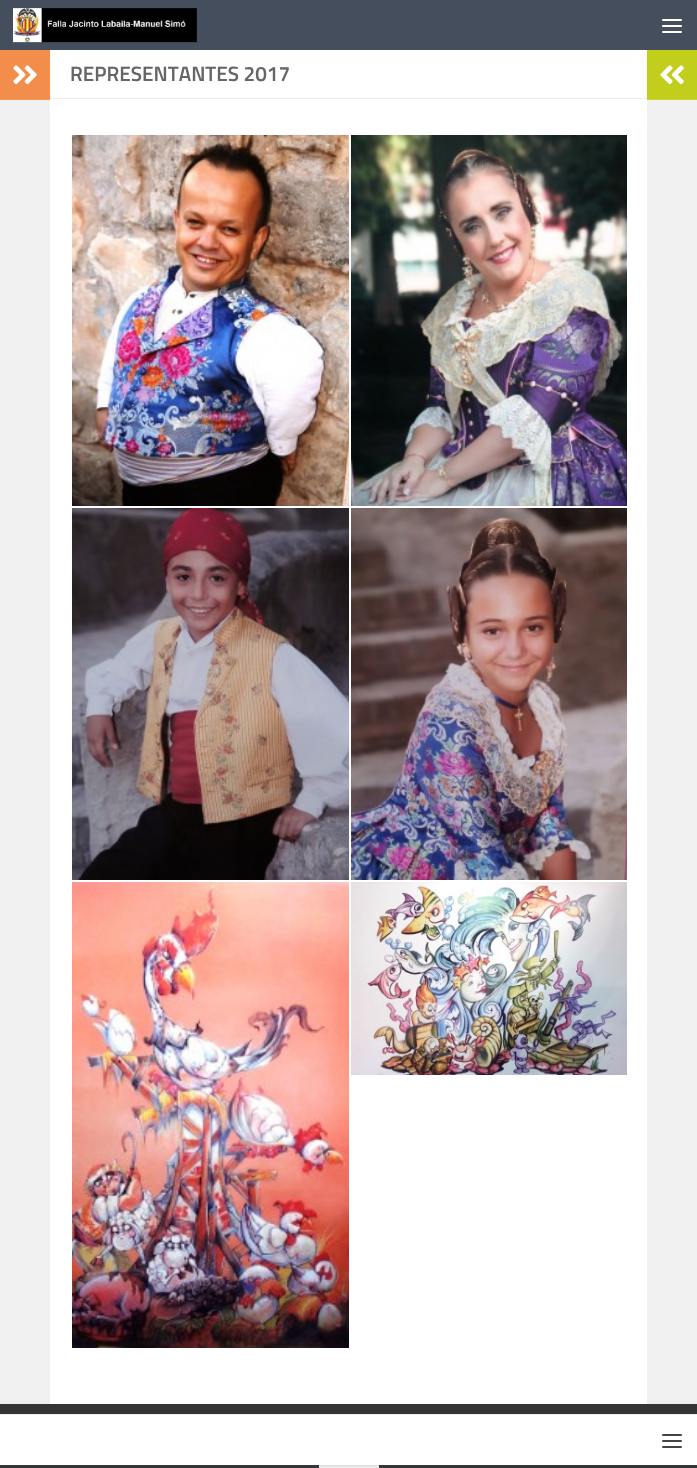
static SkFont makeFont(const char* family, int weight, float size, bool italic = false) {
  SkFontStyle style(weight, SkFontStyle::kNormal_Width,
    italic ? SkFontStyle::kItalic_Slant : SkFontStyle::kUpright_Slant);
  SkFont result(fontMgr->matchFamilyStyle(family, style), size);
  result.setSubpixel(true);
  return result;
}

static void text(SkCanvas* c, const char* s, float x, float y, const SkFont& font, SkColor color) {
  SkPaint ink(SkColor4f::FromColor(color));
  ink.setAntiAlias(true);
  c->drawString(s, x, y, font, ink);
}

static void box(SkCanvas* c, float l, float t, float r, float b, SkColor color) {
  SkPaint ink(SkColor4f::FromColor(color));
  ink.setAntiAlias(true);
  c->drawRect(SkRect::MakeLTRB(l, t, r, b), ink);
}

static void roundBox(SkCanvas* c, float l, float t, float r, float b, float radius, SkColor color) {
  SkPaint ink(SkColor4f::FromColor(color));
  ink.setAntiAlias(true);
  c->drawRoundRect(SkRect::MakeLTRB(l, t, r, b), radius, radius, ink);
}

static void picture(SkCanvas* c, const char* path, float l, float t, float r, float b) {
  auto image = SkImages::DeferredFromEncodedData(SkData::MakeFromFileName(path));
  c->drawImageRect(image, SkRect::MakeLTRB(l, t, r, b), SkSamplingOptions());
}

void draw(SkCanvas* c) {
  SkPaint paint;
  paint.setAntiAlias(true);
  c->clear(0xff353535);
  box(c, 0, 0, 697, 50, 0xff454e5c);
  picture(c, "img_01.png", 13, 8, 197, 43);
  roundBox(c, 662, 19, 682, 21, 1, 0xffffffff);
  roundBox(c, 662, 25, 682, 27, 1, 0xffffffff);
  roundBox(c, 662, 31, 682, 33, 1, 0xffffffff);
  box(c, 50, 50, 647, 1404, 0xffffffff);
  box(c, 0, 50, 50, 99, 0xfff28d4b);
  box(c, 0, 99, 50, 100, 0xfff3985d);
  picture(c, "img_02.png", 13, 65, 37, 85);
  box(c, 50, 98, 647, 99, 0xffeeeeee);
  SkFont face1 = makeFont("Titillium", 600, 20.75f);
  text(c, "REPRESENTANTES 2017", 70, 81, face1, 0xff666666);
  picture(c, "img_03.png", 72, 135, 349, 506);
  picture(c, "img_04.png", 351, 135, 627, 506);
  picture(c, "img_05.png", 72, 508, 349, 880);
  picture(c, "img_06.png", 351, 508, 627, 880);
  picture(c, "img_07.png", 72, 882, 349, 1348);
  picture(c, "img_08.png", 351, 882, 627, 1075);
  box(c, 647, 50, 697, 99, 0xffc2ce1c);
  box(c, 647, 99, 697, 100, 0xffc8d333);
  picture(c, "img_09.png", 660, 65, 684, 85);
  box(c, 0, 100, 50, 1404, 0xfff0f0f0);
  box(c, 647, 100, 697, 1404, 0xfff0f0f0);
  box(c, 0, 1415, 697, 1465, 0xffffffff);
  box(c, 0, 1414, 697, 1415, 0xffeeeeee);
  roundBox(c, 662, 1434, 682, 1436, 1, 0xff444444);
  roundBox(c, 662, 1440, 682, 1442, 1, 0xff444444);
  roundBox(c, 662, 1446, 682, 1448, 1, 0xff444444);
  box(c, 0, 1465, 697, 1468, 0xff33363b);
  box(c, 319, 1466, 379, 1468, 0xffeaeaea);
  box(c, 319, 1465, 379, 1466, 0xffdedede);
}
